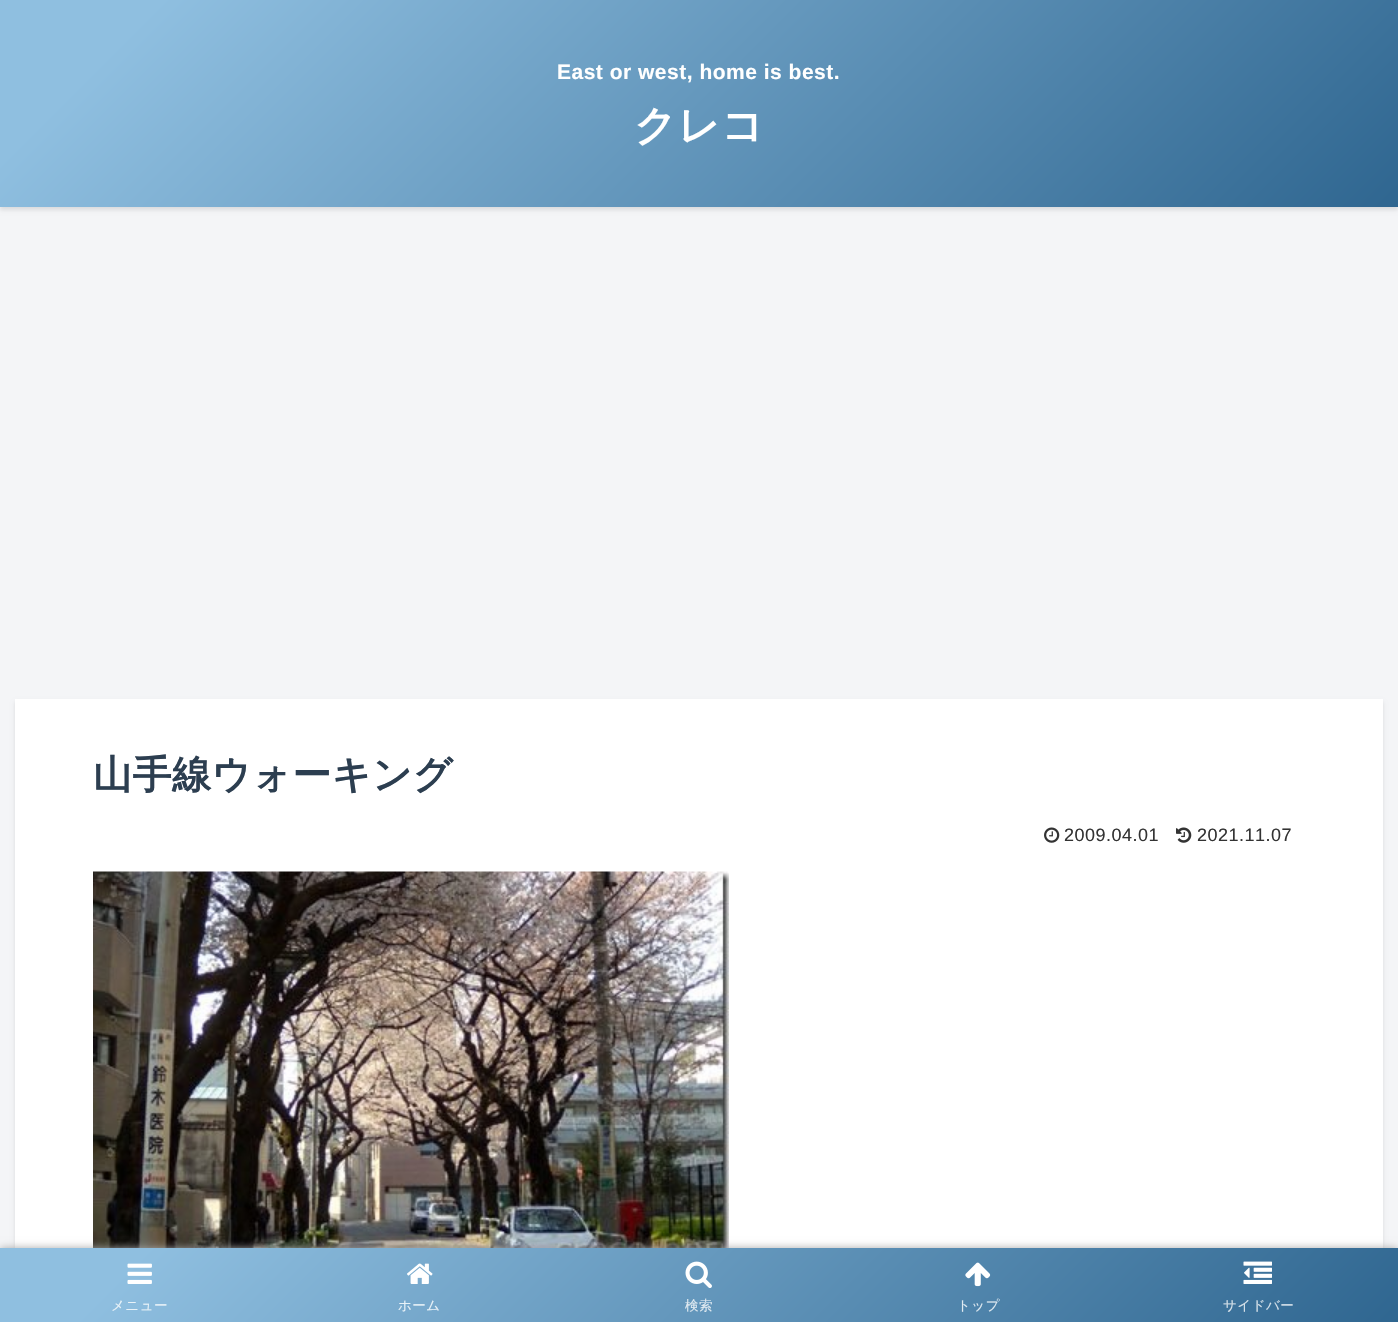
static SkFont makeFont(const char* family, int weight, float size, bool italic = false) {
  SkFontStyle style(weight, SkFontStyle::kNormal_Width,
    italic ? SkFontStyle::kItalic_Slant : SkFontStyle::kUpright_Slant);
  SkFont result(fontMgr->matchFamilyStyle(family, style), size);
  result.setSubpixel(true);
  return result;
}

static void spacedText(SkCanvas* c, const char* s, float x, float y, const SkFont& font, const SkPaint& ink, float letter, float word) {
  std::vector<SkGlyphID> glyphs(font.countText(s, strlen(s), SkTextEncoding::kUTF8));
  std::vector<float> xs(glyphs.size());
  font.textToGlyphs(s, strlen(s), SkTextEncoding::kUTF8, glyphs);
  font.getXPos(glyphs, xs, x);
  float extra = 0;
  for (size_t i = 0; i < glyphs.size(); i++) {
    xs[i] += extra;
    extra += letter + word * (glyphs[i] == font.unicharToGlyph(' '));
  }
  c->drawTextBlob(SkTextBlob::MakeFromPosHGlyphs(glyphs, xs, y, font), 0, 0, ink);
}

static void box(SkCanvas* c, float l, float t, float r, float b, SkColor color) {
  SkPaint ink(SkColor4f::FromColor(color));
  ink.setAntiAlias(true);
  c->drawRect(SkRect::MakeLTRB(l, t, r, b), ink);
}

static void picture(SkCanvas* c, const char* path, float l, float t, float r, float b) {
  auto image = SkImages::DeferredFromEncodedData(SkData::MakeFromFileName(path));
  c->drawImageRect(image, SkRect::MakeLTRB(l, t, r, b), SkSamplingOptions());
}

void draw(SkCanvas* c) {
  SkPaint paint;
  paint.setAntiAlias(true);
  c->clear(0xfff4f5f7);
  paint.setColor(0x1a000000);
  paint.setMaskFilter(SkMaskFilter::MakeBlur(kNormal_SkBlurStyle, 2));
  c->drawRect(SkRect::MakeLTRB(0, 3, 1398, 210), paint);
  paint.setMaskFilter(nullptr);
  {
    const SkColor colors[] = {0xff8fbfe0, 0xff2f6690};
    const float stops[] = {0.1f, 1};
    const SkPoint ends[] = {{298, -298}, {1100, 505}};
    paint.setShader(SkGradientShader::MakeLinear(ends, colors, stops, 2, SkTileMode::kClamp));
    paint.setAlpha(255);
  }
  c->drawRect(SkRect::MakeLTRB(0, 0, 1398, 207), paint);
  SkFont face1 = makeFont("Liberation Sans", 700, 21);
  paint.setShader(nullptr);
  paint.setColor(0xffffffff);
  spacedText(c, "East or west, home is best.", 557, 79, face1, paint, 0.5f, 0);
  SkFont face2 = makeFont("WenQuanYi Zen Hei", 700, 42);
  spacedText(c, "クレコ", 634, 140, face2, paint, 0.5f, 0);
  paint.setColor(0x1a000000);
  paint.setMaskFilter(SkMaskFilter::MakeBlur(kNormal_SkBlurStyle, 2));
  c->drawRect(SkRect::MakeLTRB(15, 702, 1383, 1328), paint);
  paint.setMaskFilter(nullptr);
  box(c, 15, 699, 1383, 1248, 0xffffffff);
  SkFont face3 = makeFont("WenQuanYi Zen Hei", 700, 39);
  paint.setColor(0xff2c3e50);
  spacedText(c, "山手線ウォーキング", 93, 788, face3, paint, 0.5f, 0);
  picture(c, "img_01.png", 1044, 827, 1060, 843);
  SkFont face4 = makeFont("Liberation Sans", 400, 18);
  paint.setColor(0xff333333);
  spacedText(c, "2009.04.01", 1064, 841, face4, paint, 0.5f, 0);
  picture(c, "img_02.png", 1176, 827, 1192, 843);
  spacedText(c, "2021.11.07", 1197, 841, face4, paint, 0.5f, 0);
  picture(c, "img_03.png", 93, 871, 729, 1248);
  paint.setColor(0xffa9a9a9);
  paint.setMaskFilter(SkMaskFilter::MakeBlur(kNormal_SkBlurStyle, 4));
  c->drawRect(SkRect::MakeLTRB(0, 1248, 1398, 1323), paint);
  paint.setMaskFilter(nullptr);
  {
    const SkColor colors[] = {0xff8fbfe0, 0xff2f6690};
    const float stops[] = {0.1f, 1};
    const SkPoint ends[] = {{331, 917}, {1067, 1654}};
    paint.setShader(SkGradientShader::MakeLinear(ends, colors, stops, 2, SkTileMode::kClamp));
    paint.setAlpha(255);
  }
  c->drawRect(SkRect::MakeLTRB(0, 1248, 1398, 1322), paint);
  picture(c, "img_04.png", 127, 1263, 152, 1284);
  SkFont face5 = makeFont("WenQuanYi Zen Hei", 500, 13.5f);
  paint.setShader(nullptr);
  paint.setColor(0xffe8f2f8);
  spacedText(c, "メニュー", 111, 1310, face5, paint, 0.5f, 0);
  picture(c, "img_05.png", 407, 1263, 433, 1284);
  spacedText(c, "ホーム", 398, 1310, face5, paint, 0.5f, 0);
  picture(c, "img_06.png", 685, 1261, 712, 1288);
  paint.setColor(0xffe0eaf1);
  spacedText(c, "検索", 685, 1310, face5, paint, 0.5f, 0);
  picture(c, "img_07.png", 965, 1262, 991, 1287);
  spacedText(c, "トップ", 957, 1310, face5, paint, 0.5f, 0);
  picture(c, "img_08.png", 1243, 1261, 1272, 1284);
  paint.setColor(0xffd8e3eb);
  spacedText(c, "サイドバー", 1223, 1310, face5, paint, 0.5f, 0);
}
